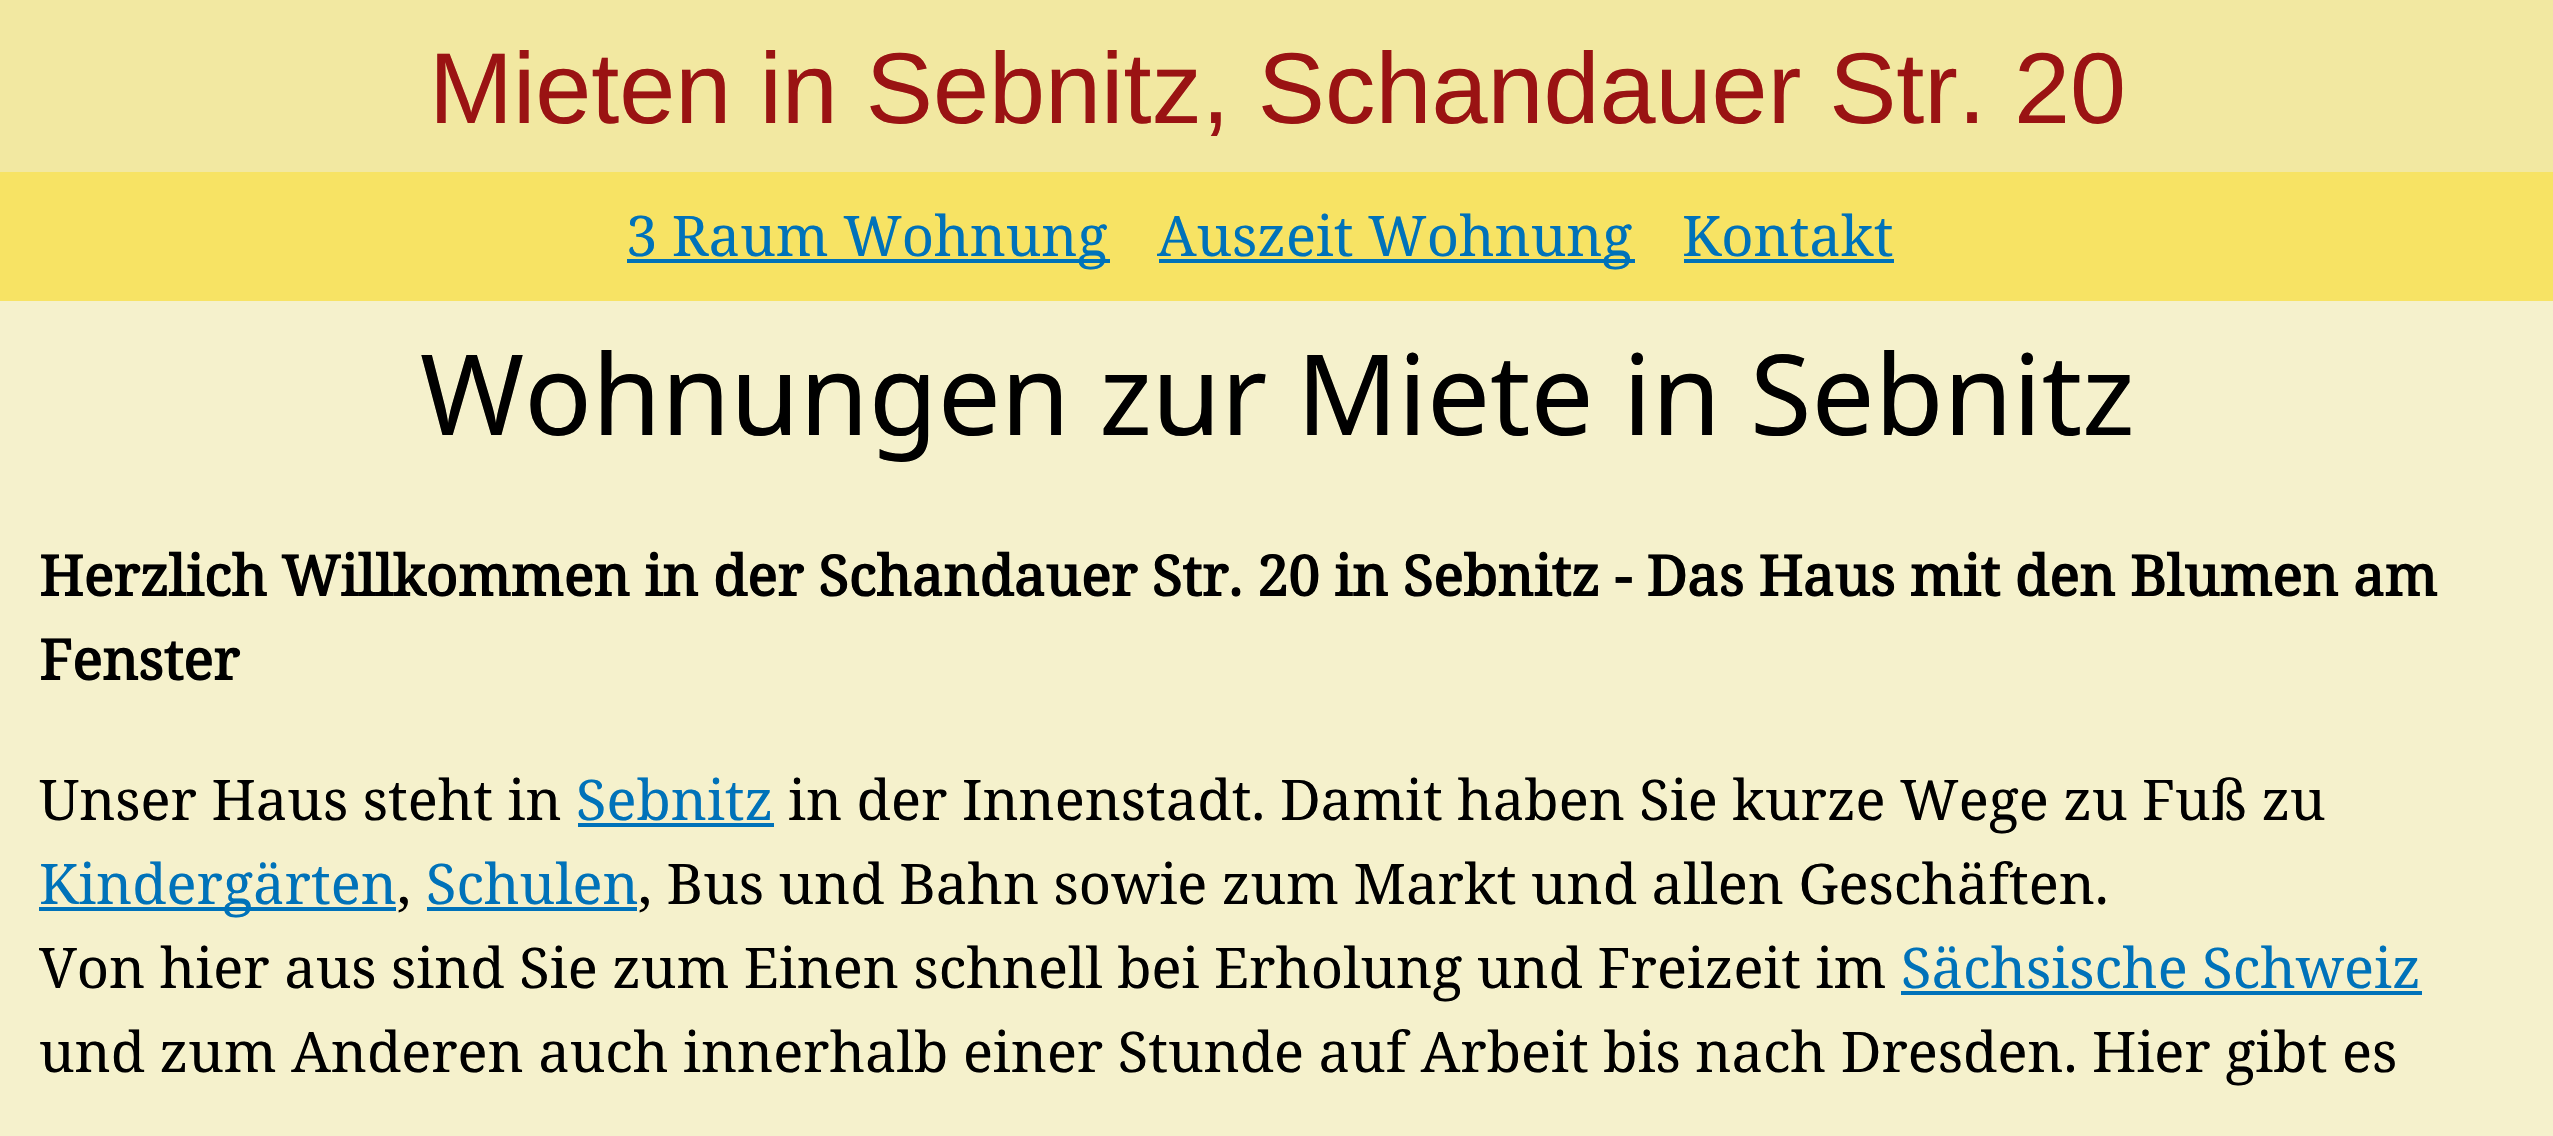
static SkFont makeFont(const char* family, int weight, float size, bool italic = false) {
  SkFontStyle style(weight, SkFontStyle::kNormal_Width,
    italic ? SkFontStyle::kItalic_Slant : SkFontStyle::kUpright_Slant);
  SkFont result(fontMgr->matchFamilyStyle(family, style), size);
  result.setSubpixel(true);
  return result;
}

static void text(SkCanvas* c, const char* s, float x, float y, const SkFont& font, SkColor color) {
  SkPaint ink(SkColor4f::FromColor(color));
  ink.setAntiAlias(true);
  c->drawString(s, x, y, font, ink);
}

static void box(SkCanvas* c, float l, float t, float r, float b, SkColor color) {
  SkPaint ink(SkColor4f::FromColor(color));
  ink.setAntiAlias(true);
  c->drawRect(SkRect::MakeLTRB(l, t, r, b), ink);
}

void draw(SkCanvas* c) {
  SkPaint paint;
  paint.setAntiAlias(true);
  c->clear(0xfff5f1cc);
  box(c, 0, 0, 2553, 172, 0xfff2e8a1);
  SkFont face1 = makeFont("Liberation Sans", 400, 100.75f);
  text(c, "Mieten in Sebnitz, Schandauer Str. 20", 429, 123, face1, 0xff9a1313);
  box(c, 0, 172, 2553, 301, 0xfff7e364);
  box(c, 627, 259, 1110, 263, 0xff0072b9);
  SkFont face2 = makeFont("Noto Serif", 400, 56);
  text(c, "3 Raum Wohnung", 626, 256, face2, 0xff0072b9);
  box(c, 1159, 259, 1635, 263, 0xff0072b9);
  text(c, "Auszeit Wohnung", 1157, 256, face2, 0xff0072b9);
  text(c, "Kontakt", 1682, 256, face2, 0xff0072b9);
  box(c, 1684, 259, 1894, 263, 0xff0072b9);
  SkFont face3 = makeFont("Noto Sans", 400, 112);
  text(c, "Wohnungen zur Miete in Sebnitz", 420, 435, face3, 0xff000000);
  SkFont face4 = makeFont("Noto Serif", 700, 56);
  text(c, "Herzlich Willkommen in der Schandauer Str. 20 in Sebnitz - Das Haus mit den Blumen am", 39, 596, face4, 0xff000000);
  text(c, "Fenster", 39, 680, face4, 0xff000000);
  text(c, "Unser Haus steht in", 39, 820, face2, 0xff000000);
  text(c, "Sebnitz", 576, 820, face2, 0xff0072b9);
  box(c, 578, 823, 774, 827, 0xff0072b9);
  text(c, "in der Innenstadt. Damit haben Sie kurze Wege zu Fuß zu", 788, 820, face2, 0xff000000);
  box(c, 39, 907, 396, 911, 0xff0072b9);
  text(c, "Kindergärten", 39, 904, face2, 0xff0072b9);
  text(c, ",", 397, 904, face2, 0xff000000);
  text(c, "Schulen", 426, 904, face2, 0xff0072b9);
  box(c, 427, 907, 637, 911, 0xff0072b9);
  text(c, ", Bus und Bahn sowie zum Markt und allen Geschäften.", 638, 904, face2, 0xff000000);
  text(c, "Von hier aus sind Sie zum Einen schnell bei Erholung und Freizeit im", 39, 988, face2, 0xff000000);
  text(c, "Sächsische Schweiz", 1901, 988, face2, 0xff0072b9);
  box(c, 1901, 991, 2422, 995, 0xff0072b9);
  text(c, "und zum Anderen auch innerhalb einer Stunde auf Arbeit bis nach Dresden. Hier gibt es", 39, 1072, face2, 0xff000000);
}
